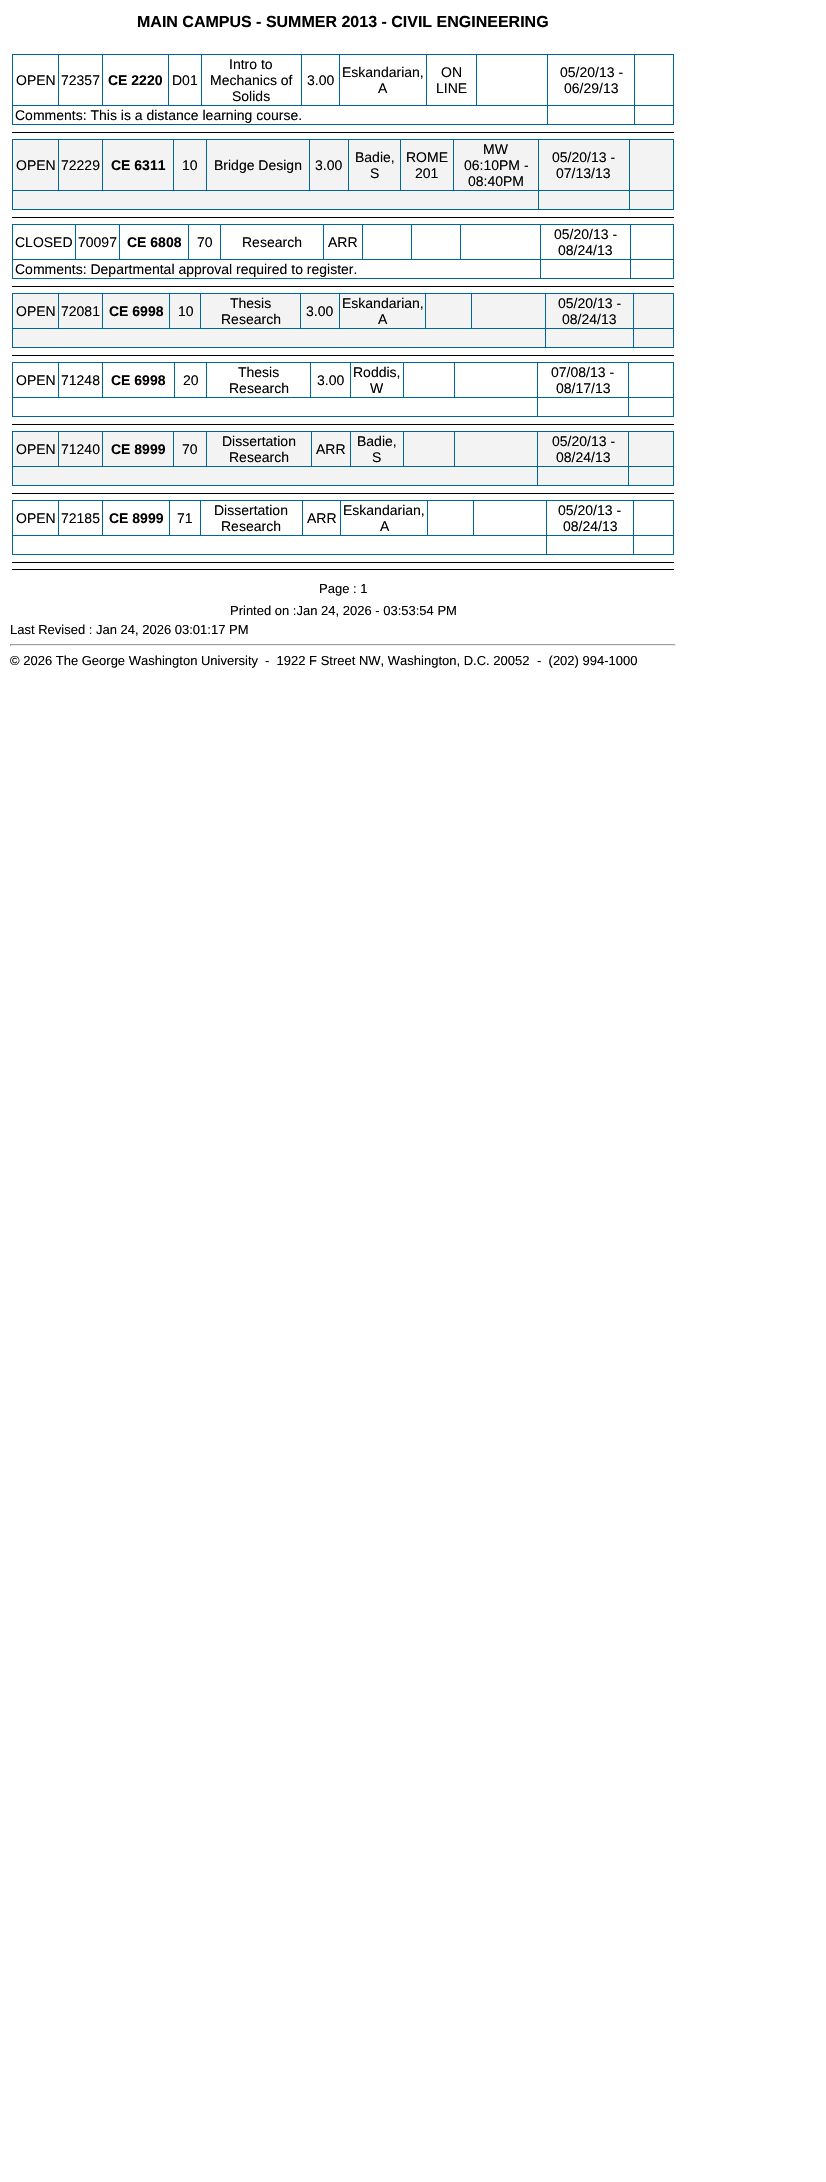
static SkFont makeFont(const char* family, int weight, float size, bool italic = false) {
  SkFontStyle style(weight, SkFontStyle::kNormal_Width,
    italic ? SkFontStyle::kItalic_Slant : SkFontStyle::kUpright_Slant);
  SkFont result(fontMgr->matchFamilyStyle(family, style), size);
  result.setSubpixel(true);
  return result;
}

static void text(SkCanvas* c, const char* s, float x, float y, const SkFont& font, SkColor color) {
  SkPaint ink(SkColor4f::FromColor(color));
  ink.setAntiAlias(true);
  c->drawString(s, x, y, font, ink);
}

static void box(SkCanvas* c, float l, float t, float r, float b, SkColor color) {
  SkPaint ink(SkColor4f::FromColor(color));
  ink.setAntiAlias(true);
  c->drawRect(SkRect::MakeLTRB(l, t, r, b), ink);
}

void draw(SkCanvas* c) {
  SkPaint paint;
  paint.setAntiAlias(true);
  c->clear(0xffffffff);
  SkFont face1 = makeFont("Liberation Sans", 700, 16);
  text(c, "MAIN CAMPUS - SUMMER 2013 - CIVIL ENGINEERING", 137, 27, face1, 0xff000000);
  box(c, 12, 54, 673, 124, 0xff006699);
  box(c, 13, 55, 673, 105, 0xffffffff);
  SkFont face2 = makeFont("Liberation Sans", 400, 14);
  text(c, "OPEN", 16, 85, face2, 0xff000000);
  box(c, 58, 54, 59, 106, 0xff006699);
  text(c, "72357", 61, 85, face2, 0xff000000);
  box(c, 102, 54, 103, 106, 0xff006699);
  SkFont face3 = makeFont("Liberation Sans", 700, 14);
  text(c, "CE 2220", 108, 85, face3, 0xff000000);
  box(c, 168, 54, 169, 106, 0xff006699);
  text(c, "D01", 172, 85, face2, 0xff000000);
  box(c, 201, 54, 202, 106, 0xff006699);
  text(c, "Intro to", 229, 69, face2, 0xff000000);
  text(c, "Mechanics of", 210, 85, face2, 0xff000000);
  text(c, "Solids", 232, 101, face2, 0xff000000);
  box(c, 301, 54, 302, 106, 0xff006699);
  text(c, "3.00", 307, 85, face2, 0xff000000);
  box(c, 339, 54, 340, 106, 0xff006699);
  text(c, "Eskandarian,", 342, 77, face2, 0xff000000);
  text(c, "A", 378, 93, face2, 0xff000000);
  box(c, 426, 54, 427, 106, 0xff006699);
  text(c, "ON", 441, 77, face2, 0xff000000);
  text(c, "LINE", 436, 93, face2, 0xff000000);
  box(c, 476, 54, 477, 106, 0xff006699);
  text(c, "05/20/13 -", 560, 77, face2, 0xff000000);
  text(c, "06/29/13", 564, 93, face2, 0xff000000);
  box(c, 13, 106, 673, 124, 0xffffffff);
  box(c, 673, 54, 674, 125, 0xff006699);
  box(c, 634, 124, 674, 125, 0xff006699);
  box(c, 634, 54, 635, 125, 0xff006699);
  box(c, 547, 124, 635, 125, 0xff006699);
  box(c, 547, 54, 548, 125, 0xff006699);
  box(c, 12, 124, 548, 125, 0xff006699);
  text(c, "Comments: This is a distance learning course.", 15, 120, face2, 0xff000000);
  box(c, 12, 132, 674, 133, 0xff000000);
  box(c, 12, 139, 673, 209, 0xff006699);
  box(c, 13, 191, 673, 209, 0xfff3f3f3);
  box(c, 673, 139, 674, 210, 0xff006699);
  box(c, 629, 209, 674, 210, 0xff006699);
  box(c, 13, 140, 673, 190, 0xfff3f3f3);
  box(c, 629, 139, 630, 210, 0xff006699);
  box(c, 538, 209, 630, 210, 0xff006699);
  box(c, 538, 139, 539, 210, 0xff006699);
  box(c, 12, 209, 539, 210, 0xff006699);
  text(c, "OPEN", 16, 170, face2, 0xff000000);
  box(c, 58, 139, 59, 191, 0xff006699);
  text(c, "72229", 61, 170, face2, 0xff000000);
  box(c, 102, 139, 103, 191, 0xff006699);
  text(c, "CE 6311", 111, 170, face3, 0xff000000);
  box(c, 173, 139, 174, 191, 0xff006699);
  text(c, "10", 182, 170, face2, 0xff000000);
  box(c, 206, 139, 207, 191, 0xff006699);
  text(c, "Bridge Design", 214, 170, face2, 0xff000000);
  box(c, 309, 139, 310, 191, 0xff006699);
  text(c, "3.00", 315, 170, face2, 0xff000000);
  box(c, 348, 139, 349, 191, 0xff006699);
  text(c, "Badie,", 355, 162, face2, 0xff000000);
  text(c, "S", 370, 178, face2, 0xff000000);
  box(c, 400, 139, 401, 191, 0xff006699);
  text(c, "ROME", 406, 162, face2, 0xff000000);
  text(c, "201", 415, 178, face2, 0xff000000);
  box(c, 453, 139, 454, 191, 0xff006699);
  text(c, "MW", 483, 154, face2, 0xff000000);
  text(c, "06:10PM -", 464, 170, face2, 0xff000000);
  text(c, "08:40PM", 468, 186, face2, 0xff000000);
  text(c, "05/20/13 -", 552, 162, face2, 0xff000000);
  text(c, "07/13/13", 556, 178, face2, 0xff000000);
  box(c, 12, 217, 674, 218, 0xff000000);
  box(c, 12, 224, 673, 278, 0xff006699);
  box(c, 13, 225, 673, 259, 0xffffffff);
  text(c, "CLOSED", 15, 247, face2, 0xff000000);
  box(c, 75, 224, 76, 260, 0xff006699);
  text(c, "70097", 78, 247, face2, 0xff000000);
  box(c, 119, 224, 120, 260, 0xff006699);
  text(c, "CE 6808", 127, 247, face3, 0xff000000);
  box(c, 188, 224, 189, 260, 0xff006699);
  text(c, "70", 197, 247, face2, 0xff000000);
  box(c, 220, 224, 221, 260, 0xff006699);
  text(c, "Research", 242, 247, face2, 0xff000000);
  box(c, 323, 224, 324, 260, 0xff006699);
  text(c, "ARR", 328, 247, face2, 0xff000000);
  box(c, 362, 224, 363, 260, 0xff006699);
  box(c, 411, 224, 412, 260, 0xff006699);
  box(c, 460, 224, 461, 260, 0xff006699);
  text(c, "05/20/13 -", 554, 239, face2, 0xff000000);
  text(c, "08/24/13", 558, 255, face2, 0xff000000);
  box(c, 13, 260, 673, 278, 0xffffffff);
  box(c, 673, 224, 674, 279, 0xff006699);
  box(c, 630, 278, 674, 279, 0xff006699);
  box(c, 630, 224, 631, 279, 0xff006699);
  box(c, 540, 278, 631, 279, 0xff006699);
  box(c, 540, 224, 541, 279, 0xff006699);
  box(c, 12, 278, 541, 279, 0xff006699);
  text(c, "Comments: Departmental approval required to register.", 15, 274, face2, 0xff000000);
  box(c, 12, 286, 674, 287, 0xff000000);
  box(c, 12, 293, 673, 347, 0xff006699);
  box(c, 13, 329, 673, 347, 0xfff3f3f3);
  box(c, 673, 293, 674, 348, 0xff006699);
  box(c, 633, 347, 674, 348, 0xff006699);
  box(c, 13, 294, 673, 328, 0xfff3f3f3);
  box(c, 633, 293, 634, 348, 0xff006699);
  box(c, 545, 347, 634, 348, 0xff006699);
  box(c, 545, 293, 546, 348, 0xff006699);
  box(c, 12, 347, 546, 348, 0xff006699);
  text(c, "OPEN", 16, 316, face2, 0xff000000);
  box(c, 58, 293, 59, 329, 0xff006699);
  text(c, "72081", 61, 316, face2, 0xff000000);
  box(c, 102, 293, 103, 329, 0xff006699);
  text(c, "CE 6998", 109, 316, face3, 0xff000000);
  box(c, 169, 293, 170, 329, 0xff006699);
  text(c, "10", 178, 316, face2, 0xff000000);
  box(c, 200, 293, 201, 329, 0xff006699);
  text(c, "Thesis", 230, 308, face2, 0xff000000);
  text(c, "Research", 221, 324, face2, 0xff000000);
  box(c, 300, 293, 301, 329, 0xff006699);
  text(c, "3.00", 306, 316, face2, 0xff000000);
  box(c, 339, 293, 340, 329, 0xff006699);
  text(c, "Eskandarian,", 342, 308, face2, 0xff000000);
  text(c, "A", 378, 324, face2, 0xff000000);
  box(c, 425, 293, 426, 329, 0xff006699);
  box(c, 471, 293, 472, 329, 0xff006699);
  text(c, "05/20/13 -", 558, 308, face2, 0xff000000);
  text(c, "08/24/13", 562, 324, face2, 0xff000000);
  box(c, 12, 355, 674, 356, 0xff000000);
  box(c, 12, 362, 673, 416, 0xff006699);
  box(c, 13, 398, 673, 416, 0xffffffff);
  box(c, 673, 362, 674, 417, 0xff006699);
  box(c, 628, 416, 674, 417, 0xff006699);
  box(c, 13, 363, 673, 397, 0xffffffff);
  box(c, 628, 362, 629, 417, 0xff006699);
  box(c, 537, 416, 629, 417, 0xff006699);
  box(c, 537, 362, 538, 417, 0xff006699);
  box(c, 12, 416, 538, 417, 0xff006699);
  text(c, "OPEN", 16, 385, face2, 0xff000000);
  box(c, 58, 362, 59, 398, 0xff006699);
  text(c, "71248", 61, 385, face2, 0xff000000);
  box(c, 102, 362, 103, 398, 0xff006699);
  text(c, "CE 6998", 111, 385, face3, 0xff000000);
  box(c, 174, 362, 175, 398, 0xff006699);
  text(c, "20", 183, 385, face2, 0xff000000);
  box(c, 206, 362, 207, 398, 0xff006699);
  text(c, "Thesis", 238, 377, face2, 0xff000000);
  text(c, "Research", 229, 393, face2, 0xff000000);
  box(c, 310, 362, 311, 398, 0xff006699);
  text(c, "3.00", 317, 385, face2, 0xff000000);
  box(c, 350, 362, 351, 398, 0xff006699);
  text(c, "Roddis,", 353, 377, face2, 0xff000000);
  text(c, "W", 370, 393, face2, 0xff000000);
  box(c, 403, 362, 404, 398, 0xff006699);
  box(c, 454, 362, 455, 398, 0xff006699);
  text(c, "07/08/13 -", 551, 377, face2, 0xff000000);
  text(c, "08/17/13", 556, 393, face2, 0xff000000);
  box(c, 12, 424, 674, 425, 0xff000000);
  box(c, 12, 431, 673, 485, 0xff006699);
  box(c, 13, 467, 673, 485, 0xfff3f3f3);
  box(c, 673, 431, 674, 486, 0xff006699);
  box(c, 628, 485, 674, 486, 0xff006699);
  box(c, 13, 432, 673, 466, 0xfff3f3f3);
  box(c, 628, 431, 629, 486, 0xff006699);
  box(c, 537, 485, 629, 486, 0xff006699);
  box(c, 537, 431, 538, 486, 0xff006699);
  box(c, 12, 485, 538, 486, 0xff006699);
  text(c, "OPEN", 16, 454, face2, 0xff000000);
  box(c, 58, 431, 59, 467, 0xff006699);
  text(c, "71240", 61, 454, face2, 0xff000000);
  box(c, 102, 431, 103, 467, 0xff006699);
  text(c, "CE 8999", 111, 454, face3, 0xff000000);
  box(c, 173, 431, 174, 467, 0xff006699);
  text(c, "70", 182, 454, face2, 0xff000000);
  box(c, 206, 431, 207, 467, 0xff006699);
  text(c, "Dissertation", 222, 446, face2, 0xff000000);
  text(c, "Research", 229, 462, face2, 0xff000000);
  box(c, 311, 431, 312, 467, 0xff006699);
  text(c, "ARR", 316, 454, face2, 0xff000000);
  box(c, 350, 431, 351, 467, 0xff006699);
  text(c, "Badie,", 357, 446, face2, 0xff000000);
  text(c, "S", 372, 462, face2, 0xff000000);
  box(c, 403, 431, 404, 467, 0xff006699);
  box(c, 454, 431, 455, 467, 0xff006699);
  text(c, "05/20/13 -", 552, 446, face2, 0xff000000);
  text(c, "08/24/13", 556, 462, face2, 0xff000000);
  box(c, 12, 493, 674, 494, 0xff000000);
  box(c, 12, 500, 673, 554, 0xff006699);
  box(c, 13, 536, 673, 554, 0xffffffff);
  box(c, 673, 500, 674, 555, 0xff006699);
  box(c, 633, 554, 674, 555, 0xff006699);
  box(c, 13, 501, 673, 535, 0xffffffff);
  box(c, 633, 500, 634, 555, 0xff006699);
  box(c, 546, 554, 634, 555, 0xff006699);
  box(c, 546, 500, 547, 555, 0xff006699);
  box(c, 12, 554, 547, 555, 0xff006699);
  text(c, "OPEN", 16, 523, face2, 0xff000000);
  box(c, 58, 500, 59, 536, 0xff006699);
  text(c, "72185", 61, 523, face2, 0xff000000);
  box(c, 102, 500, 103, 536, 0xff006699);
  text(c, "CE 8999", 109, 523, face3, 0xff000000);
  box(c, 169, 500, 170, 536, 0xff006699);
  text(c, "71", 177, 523, face2, 0xff000000);
  box(c, 200, 500, 201, 536, 0xff006699);
  text(c, "Dissertation", 214, 515, face2, 0xff000000);
  text(c, "Research", 221, 531, face2, 0xff000000);
  box(c, 302, 500, 303, 536, 0xff006699);
  text(c, "ARR", 307, 523, face2, 0xff000000);
  box(c, 340, 500, 341, 536, 0xff006699);
  text(c, "Eskandarian,", 343, 515, face2, 0xff000000);
  text(c, "A", 380, 531, face2, 0xff000000);
  box(c, 427, 500, 428, 536, 0xff006699);
  box(c, 473, 500, 474, 536, 0xff006699);
  text(c, "05/20/13 -", 558, 515, face2, 0xff000000);
  text(c, "08/24/13", 563, 531, face2, 0xff000000);
  box(c, 12, 562, 674, 563, 0xff000000);
  box(c, 12, 569, 674, 570, 0xff000000);
  SkFont face4 = makeFont("Liberation Sans", 400, 13);
  text(c, "Page : 1", 319, 593, face4, 0xff000000);
  text(c, "Printed on :Jan 24, 2026 - 03:53:54 PM", 230, 615, face4, 0xff000000);
  text(c, "Last Revised : Jan 24, 2026 03:01:17 PM", 10, 634, face4, 0xff000000);
  box(c, 10, 644, 676, 645, 0xff9f9f9f);
  box(c, 675, 644, 676, 646, 0xffeeeeee);
  box(c, 10, 645, 676, 646, 0xffeeeeee);
  box(c, 10, 644, 11, 646, 0xff9f9f9f);
  text(c, "© 2026 The George Washington University", 10, 665, face4, 0xff000000);
  text(c, "-  1922 F Street NW, Washington, D.C. 20052", 265, 665, face4, 0xff000000);
  text(c, "-  (202) 994-1000", 537, 665, face4, 0xff000000);
}
